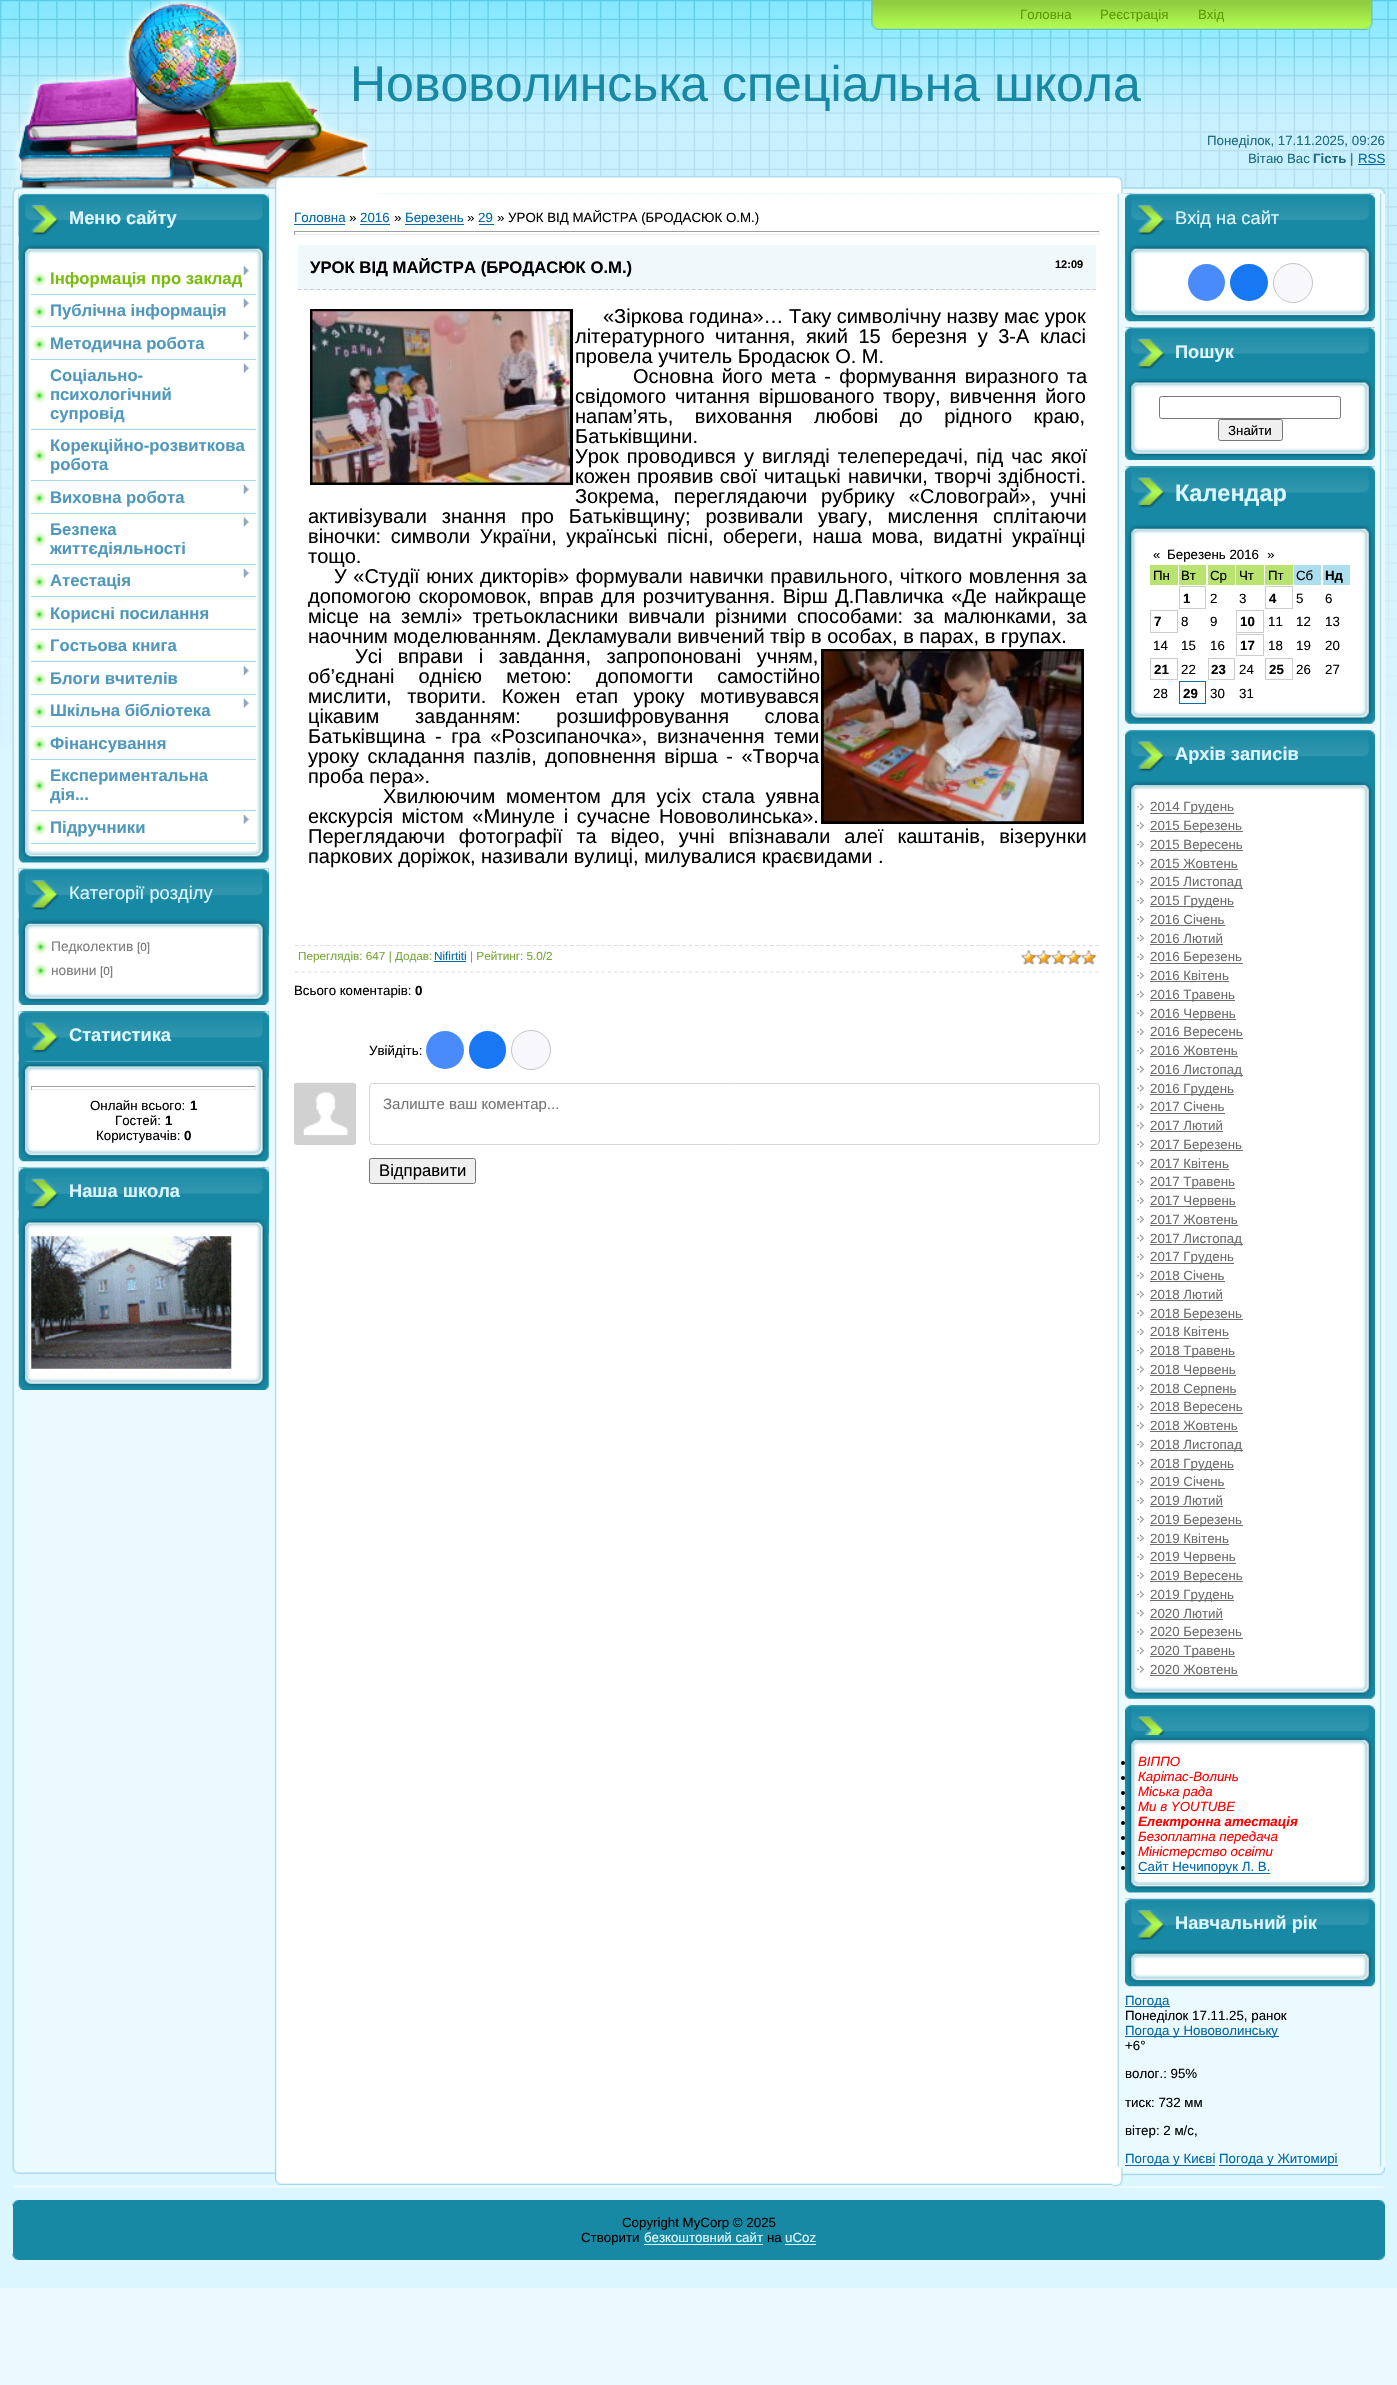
static SkFont makeFont(const char* family, int weight, float size, bool italic = false) {
  SkFontStyle style(weight, SkFontStyle::kNormal_Width,
    italic ? SkFontStyle::kItalic_Slant : SkFontStyle::kUpright_Slant);
  SkFont result(fontMgr->matchFamilyStyle(family, style), size);
  result.setSubpixel(true);
  return result;
}

static void text(SkCanvas* c, const char* s, float x, float y, const SkFont& font, SkColor color) {
  SkPaint ink(SkColor4f::FromColor(color));
  ink.setAntiAlias(true);
  c->drawString(s, x, y, font, ink);
}

static void spacedText(SkCanvas* c, const char* s, float x, float y, const SkFont& font, const SkPaint& ink, float letter, float word) {
  std::vector<SkGlyphID> glyphs(font.countText(s, strlen(s), SkTextEncoding::kUTF8));
  std::vector<float> xs(glyphs.size());
  font.textToGlyphs(s, strlen(s), SkTextEncoding::kUTF8, glyphs);
  font.getXPos(glyphs, xs, x);
  float extra = 0;
  for (size_t i = 0; i < glyphs.size(); i++) {
    xs[i] += extra;
    extra += letter + word * (glyphs[i] == font.unicharToGlyph(' '));
  }
  c->drawTextBlob(SkTextBlob::MakeFromPosHGlyphs(glyphs, xs, y, font), 0, 0, ink);
}

static void box(SkCanvas* c, float l, float t, float r, float b, SkColor color) {
  SkPaint ink(SkColor4f::FromColor(color));
  ink.setAntiAlias(true);
  c->drawRect(SkRect::MakeLTRB(l, t, r, b), ink);
}

static void roundBox(SkCanvas* c, float l, float t, float r, float b, float radius, SkColor color) {
  SkPaint ink(SkColor4f::FromColor(color));
  ink.setAntiAlias(true);
  c->drawRoundRect(SkRect::MakeLTRB(l, t, r, b), radius, radius, ink);
}

static void picture(SkCanvas* c, const char* path, float l, float t, float r, float b) {
  auto image = SkImages::DeferredFromEncodedData(SkData::MakeFromFileName(path));
  c->drawImageRect(image, SkRect::MakeLTRB(l, t, r, b), SkSamplingOptions());
}

void draw(SkCanvas* c) {
  SkPaint paint;
  paint.setAntiAlias(true);
  c->clear(0xffebfaff);
  box(c, 0, 747, 1397, 2288, 0xffdcf6ff);
  picture(c, "img_01.png", 0, 0, 1397, 747);
  picture(c, "img_02.png", 12, 176, 1385, 194);
  box(c, 13, 194, 1385, 2188, 0xffebfaff);
  picture(c, "img_05.png", 12, 193, 282, 2167);
  box(c, 19, 244, 269, 863, 0xffffffff);
  picture(c, "img_06.png", 18, 193, 269, 863);
  box(c, 20, 194, 269, 244, 0xff1789a4);
  picture(c, "img_07.png", 18, 193, 269, 237);
  picture(c, "img_03.png", 12, 0, 375, 194);
  picture(c, "img_04.png", 871, 0, 1373, 30);
  SkFont face1 = makeFont("Liberation Sans", 400, 13.3f);
  text(c, "Головна", 1020, 19, face1, 0xff599b00);
  text(c, "Реєстрація", 1100, 19, face1, 0xff599b00);
  text(c, "Вхід", 1198, 19, face1, 0xff599b00);
  SkFont face2 = makeFont("Liberation Sans", 400, 50);
  text(c, "Нововолинська спеціальна школа", 350, 101, face2, 0xff1789a4);
  text(c, "Понеділок, 17.11.2025, 09:26", 1207, 145, face1, 0xff1f6c7f);
  text(c, "Вітаю Вас", 1248, 163, face1, 0xff1f6c7f);
  SkFont face3 = makeFont("Liberation Sans", 700, 13.3f);
  text(c, "Гість", 1313, 163, face3, 0xff1f6c7f);
  text(c, "|", 1350, 163, face1, 0xff1f6c7f);
  text(c, "RSS", 1358, 163, face1, 0xff0069a9);
  box(c, 1358, 164, 1385, 165, 0xff0069a9);
  SkFont face4 = makeFont("Liberation Sans", 700, 18.25f);
  text(c, "Меню сайту", 69, 224, face4, 0xffdcf6ff);
  picture(c, "img_08.png", 18, 243, 269, 260);
  picture(c, "img_09.png", 31, 271, 47, 287);
  box(c, 31, 294, 256, 295, 0xffa2d7ec);
  SkFont face5 = makeFont("Liberation Sans", 700, 16.7f);
  text(c, "Інформація про заклад", 50, 284, face5, 0xff79bd11);
  picture(c, "img_10.png", 243, 266, 249, 275);
  picture(c, "img_11.png", 31, 304, 47, 319);
  box(c, 31, 326, 256, 327, 0xffa2d7ec);
  text(c, "Публічна інформація", 50, 316, face5, 0xff4f98bc);
  picture(c, "img_12.png", 243, 298, 249, 308);
  picture(c, "img_09.png", 31, 336, 47, 352);
  box(c, 31, 359, 256, 360, 0xffa2d7ec);
  text(c, "Методична робота", 50, 349, face5, 0xff4f98bc);
  picture(c, "img_10.png", 243, 331, 249, 340);
  picture(c, "img_13.png", 31, 388, 47, 403);
  box(c, 31, 429, 256, 430, 0xffa2d7ec);
  text(c, "Соціально-", 50, 381, face5, 0xff4f98bc);
  picture(c, "img_12.png", 243, 363, 249, 373);
  text(c, "психологічний", 50, 400, face5, 0xff4f98bc);
  text(c, "супровід", 50, 419, face5, 0xff4f98bc);
  picture(c, "img_13.png", 31, 448, 47, 463);
  box(c, 31, 480, 256, 481, 0xffa2d7ec);
  text(c, "Корекційно-розвиткова", 50, 451, face5, 0xff4f98bc);
  text(c, "робота", 50, 470, face5, 0xff4f98bc);
  picture(c, "img_14.png", 31, 490, 47, 505);
  box(c, 31, 513, 256, 514, 0xffa2d7ec);
  text(c, "Виховна робота", 50, 503, face5, 0xff4f98bc);
  picture(c, "img_15.png", 243, 485, 249, 494);
  picture(c, "img_09.png", 31, 531, 47, 547);
  box(c, 31, 564, 256, 565, 0xffa2d7ec);
  picture(c, "img_16.png", 243, 517, 249, 527);
  text(c, "Безпека", 50, 535, face5, 0xff4f98bc);
  text(c, "життєдіяльності", 50, 554, face5, 0xff4f98bc);
  picture(c, "img_11.png", 31, 574, 47, 589);
  box(c, 31, 596, 256, 597, 0xffa2d7ec);
  text(c, "Атестація", 50, 586, face5, 0xff4f98bc);
  picture(c, "img_12.png", 243, 568, 249, 578);
  picture(c, "img_09.png", 31, 606, 47, 622);
  box(c, 31, 629, 256, 630, 0xffa2d7ec);
  text(c, "Корисні посилання", 50, 619, face5, 0xff4f98bc);
  picture(c, "img_11.png", 31, 639, 47, 654);
  box(c, 31, 661, 256, 662, 0xffa2d7ec);
  text(c, "Гостьова книга", 50, 651, face5, 0xff4f98bc);
  picture(c, "img_09.png", 31, 671, 47, 687);
  box(c, 31, 694, 256, 695, 0xffa2d7ec);
  text(c, "Блоги вчителів", 50, 684, face5, 0xff4f98bc);
  picture(c, "img_10.png", 243, 666, 249, 675);
  picture(c, "img_11.png", 31, 704, 47, 719);
  box(c, 31, 726, 256, 727, 0xffa2d7ec);
  text(c, "Шкільна бібліотека", 50, 716, face5, 0xff4f98bc);
  picture(c, "img_12.png", 243, 698, 249, 708);
  picture(c, "img_09.png", 31, 736, 47, 752);
  box(c, 31, 759, 256, 760, 0xffa2d7ec);
  text(c, "Фінансування", 50, 749, face5, 0xff4f98bc);
  picture(c, "img_17.png", 31, 778, 47, 793);
  box(c, 31, 810, 256, 811, 0xffa2d7ec);
  text(c, "Експериментальна", 50, 781, face5, 0xff4f98bc);
  text(c, "дія...", 50, 800, face5, 0xff4f98bc);
  picture(c, "img_14.png", 31, 820, 47, 835);
  box(c, 31, 843, 256, 844, 0xffa2d7ec);
  text(c, "Підручники", 50, 833, face5, 0xff4f98bc);
  picture(c, "img_15.png", 243, 815, 249, 824);
  picture(c, "img_18.png", 18, 868, 269, 1005);
  box(c, 20, 869, 269, 919, 0xff1789a4);
  picture(c, "img_19.png", 18, 868, 269, 912);
  SkFont face6 = makeFont("Liberation Sans", 400, 18.25f);
  text(c, "Категорії розділу", 69, 899, face6, 0xffdcf6ff);
  picture(c, "img_08.png", 18, 918, 269, 935);
  picture(c, "img_20.png", 33, 939, 48, 954);
  SkFont face7 = makeFont("Liberation Sans", 400, 13.75f);
  text(c, "Педколектив", 51, 951, face7, 0xff7d7d7d);
  SkFont face8 = makeFont("Liberation Sans", 400, 11.75f);
  text(c, "[0]", 137, 951, face8, 0xff6e6e6e);
  picture(c, "img_21.png", 33, 963, 48, 978);
  text(c, "новини", 51, 975, face7, 0xff7d7d7d);
  text(c, "[0]", 100, 975, face8, 0xff6e6e6e);
  picture(c, "img_22.png", 18, 1011, 269, 1162);
  box(c, 19, 1011, 269, 1061, 0xff1789a4);
  picture(c, "img_23.png", 18, 1011, 269, 1054);
  text(c, "Статистика", 69, 1041, face4, 0xffdcf6ff);
  picture(c, "img_24.png", 18, 1061, 269, 1078);
  box(c, 31, 1086, 256, 1087, 0xff9f9f9f);
  box(c, 255, 1086, 256, 1090, 0xffeeeeee);
  box(c, 31, 1089, 256, 1090, 0xffeeeeee);
  box(c, 31, 1086, 32, 1090, 0xff9f9f9f);
  text(c, "Онлайн всього:", 90, 1110, face1, 0xff000000);
  text(c, "1", 190, 1110, face3, 0xff000000);
  text(c, "Гостей:", 115, 1125, face1, 0xff000000);
  text(c, "1", 165, 1125, face3, 0xff000000);
  text(c, "Користувачів:", 96, 1140, face1, 0xff000000);
  text(c, "0", 184, 1140, face3, 0xff000000);
  picture(c, "img_25.png", 18, 1167, 269, 1390);
  box(c, 20, 1168, 269, 1218, 0xff1789a4);
  picture(c, "img_26.png", 18, 1167, 269, 1210);
  text(c, "Наша школа", 69, 1197, face4, 0xffdcf6ff);
  picture(c, "img_27.png", 18, 1217, 269, 1234);
  picture(c, "img_28.png", 31, 1236, 232, 1369);
  box(c, 281, 194, 1113, 2166, 0xffffffff);
  text(c, "Головна", 294, 222, face1, 0xff0069a9);
  box(c, 294, 224, 345, 225, 0xff0069a9);
  text(c, "»", 349, 222, face1, 0xff000000);
  text(c, "2016", 360, 222, face1, 0xff0069a9);
  box(c, 360, 224, 390, 225, 0xff0069a9);
  text(c, "»", 394, 222, face1, 0xff000000);
  box(c, 405, 224, 464, 225, 0xff0069a9);
  text(c, "Березень", 405, 222, face1, 0xff0069a9);
  text(c, "»", 467, 222, face1, 0xff000000);
  text(c, "29", 478, 222, face1, 0xff0069a9);
  box(c, 479, 224, 494, 225, 0xff0069a9);
  text(c, "» УРОК ВІД МАЙСТРА (БРОДАСЮК О.М.)", 497, 222, face1, 0xff000000);
  box(c, 294, 231, 1100, 232, 0xff9f9f9f);
  box(c, 1099, 231, 1100, 235, 0xffeeeeee);
  box(c, 294, 234, 1100, 235, 0xffeeeeee);
  box(c, 294, 231, 295, 235, 0xff9f9f9f);
  box(c, 298, 245, 1096, 290, 0xfff1f8fb);
  paint.setStyle(SkPaint::kStroke_Style);
  paint.setStrokeWidth(1.2f);
  paint.setColor(0xffcbcbe6);
  paint.setPathEffect(SkDashPathEffect::Make({{3.75f, 2.51f}}, 0));
  c->drawPath(SkPathBuilder().moveTo(297.5f, 289.5f).lineTo(1096, 289.5f).detach(), paint);
  paint.setPathEffect(nullptr);
  text(c, "УРОК ВІД МАЙСТРА (БРОДАСЮК О.М.)", 310, 273, face5, 0xff000000);
  SkFont face9 = makeFont("Liberation Sans", 700, 11);
  text(c, "12:09", 1055, 268, face9, 0xff000000);
  paint.setStrokeWidth(3);
  paint.setColor(0xff000000);
  c->drawRect(SkRect::MakeLTRB(311.5f, 310.5f, 571.5f, 483.5f), paint);
  picture(c, "img_29.png", 312, 311, 570, 483);
  SkFont face10 = makeFont("Liberation Sans", 400, 20);
  text(c, "«Зіркова година»… Таку символічну назву має урок", 603, 323, face10, 0xff000000);
  paint.setStyle(SkPaint::kFill_Style);
  spacedText(c, "літературного читання, який 15 березня у 3-А класі", 575, 343, face10, paint, 0, 5);
  text(c, "провела учитель Бродасюк О. М.", 575, 363, face10, 0xff000000);
  spacedText(c, "Основна його мета - формування виразного та", 633, 383, face10, paint, 0, 2.75f);
  spacedText(c, "свідомого читання віршованого твору, вивчення його", 575, 403, face10, paint, 0, 3.25f);
  spacedText(c, "напам’ять, виховання любові до рідного краю,", 575, 423, face10, paint, 0, 16);
  text(c, "Батьківщини.", 575, 443, face10, 0xff000000);
  spacedText(c, "Урок проводився у вигляді телепередачі, під час якої", 575, 463, face10, paint, 0, 2.5f);
  spacedText(c, "кожен проявив свої читацькі", 575, 483, face10, paint, 0, 1);
  spacedText(c, "навички, творчі здібності.", 848, 483, face10, paint, 0, 1);
  spacedText(c, "Зокрема, переглядаючи рубрику «Словограй», учні", 575, 503, face10, paint, 0, 8.5f);
  spacedText(c, "активізували знання про Батьківщину; розвивали увагу, мислення сплітаючи", 308, 523, face10, paint, 0, 9.25f);
  spacedText(c, "віночки: символи України, українські пісні, обереги, наша мова, видатні українці", 308, 543, face10, paint, 0, 4);
  text(c, "тощо.", 308, 563, face10, 0xff000000);
  spacedText(c, "У «Студії юних дикторів» формували навички правильного, чіткого мовлення за", 334, 583, face10, paint, 0, 1);
  spacedText(c, "допомогою скоромовок, вправ для розчитування. Вірш Д.Павличка «Де найкраще", 308, 603, face10, paint, 0, 2);
  spacedText(c, "місце на землі» третьокласники вивчали різними способами: за малюнками, за", 308, 623, face10, paint, 0, 4.5f);
  text(c, "наочним моделюванням. Декламували вивчений твір в особах, в парах, в групах.", 308, 643, face10, 0xff000000);
  paint.setStyle(SkPaint::kStroke_Style);
  c->drawRect(SkRect::MakeLTRB(822.5f, 650.5f, 1082.5f, 822.5f), paint);
  picture(c, "img_30.png", 823, 651, 1082, 822);
  paint.setStyle(SkPaint::kFill_Style);
  spacedText(c, "Усі вправи і завдання, запропоновані учням,", 355, 663, face10, paint, 0, 10);
  spacedText(c, "об’єднані однією метою: допомогти самостійно", 308, 683, face10, paint, 0, 18.5f);
  spacedText(c, "мислити, творити. Кожен етап уроку мотивувався", 308, 703, face10, paint, 0, 10);
  spacedText(c, "цікавим завданням: розшифровування слова", 308, 723, face10, paint, 0, 30);
  spacedText(c, "Батьківщина - гра «Розсипаночка», визначення теми", 308, 743, face10, paint, 0, 4);
  spacedText(c, "уроку складання пазлів, доповнення вірша - «Творча", 308, 763, face10, paint, 0, 3);
  text(c, "проба пера».", 308, 783, face10, 0xff000000);
  spacedText(c, "Хвилюючим моментом для усіх стала уявна", 383, 803, face10, paint, 0, 5.25f);
  spacedText(c, "екскурсія містом «Минуле і сучасне Нововолинська».", 308, 823, face10, paint, 0, 3);
  spacedText(c, "Переглядаючи фотографії та відео, учні впізнавали алеї каштанів, візерунки", 308, 843, face10, paint, 0, 8.25f);
  text(c, "паркових доріжок, називали вулиці, милувалися краєвидами .", 308, 863, face10, 0xff000000);
  paint.setStyle(SkPaint::kStroke_Style);
  paint.setStrokeWidth(1.2f);
  paint.setColor(0xffdddddd);
  paint.setPathEffect(SkDashPathEffect::Make({{3.75f, 2.5f}}, 0));
  c->drawPath(SkPathBuilder().moveTo(295, 945.5f).lineTo(1099, 945.5f).detach(), paint);
  paint.setPathEffect(nullptr);
  paint.setPathEffect(SkDashPathEffect::Make({{3.75f, 2.5f}}, 0));
  c->drawPath(SkPathBuilder().moveTo(295, 972).lineTo(1099, 972).detach(), paint);
  paint.setPathEffect(nullptr);
  text(c, "Переглядів: 647 | Додав:", 298, 960, face8, 0xff79a53d);
  text(c, "Nifirtiti", 434, 960, face8, 0xff0069a9);
  box(c, 434, 961, 466, 962, 0xff0069a9);
  text(c, "| Рейтинг: 5.0/2", 470, 960, face8, 0xff79a53d);
  picture(c, "img_31.png", 1021, 950, 1097, 965);
  picture(c, "img_32.png", 1021, 950, 1097, 965);
  text(c, "Всього коментарів:", 294, 995, face1, 0xff000000);
  text(c, "0", 415, 995, face3, 0xff000000);
  text(c, "Увійдіть:", 369, 1055, face1, 0xff000000);
  paint.setStyle(SkPaint::kFill_Style);
  paint.setColor(0xff498bfa);
  c->drawCircle(445, 1050, 19, paint);
  roundBox(c, 469, 1031, 506, 1069, 18.5f, 0xff1877f2);
  paint.setColor(0xfff8f8fc);
  c->drawCircle(531, 1050, 19.5f, paint);
  paint.setStyle(SkPaint::kStroke_Style);
  paint.setStrokeWidth(1);
  paint.setColor(0xffc4c4c4);
  c->drawCircle(531, 1050, 19.5f, paint);
  picture(c, "img_33.png", 294, 1082, 356, 1145);
  paint.setColor(0xffd6d6d6);
  c->drawRoundRect(SkRect::MakeLTRB(369.5f, 1083.5f, 1099.5f, 1144.5f), 3.5f, 3.5f, paint);
  SkFont face11 = makeFont("Liberation Sans", 400, 15);
  text(c, "Залиште ваш коментар...", 383, 1109, face11, 0xff757575);
  paint.setStyle(SkPaint::kFill_Style);
  paint.setColor(0xffefefef);
  c->drawRoundRect(SkRect::MakeLTRB(369.5f, 1158.5f, 475.5f, 1183.5f), 2, 2, paint);
  paint.setStyle(SkPaint::kStroke_Style);
  paint.setColor(0xff767676);
  c->drawRoundRect(SkRect::MakeLTRB(369.5f, 1158.5f, 475.5f, 1183.5f), 2, 2, paint);
  SkFont face12 = makeFont("Liberation Sans", 400, 16.7f);
  text(c, "Відправити", 379, 1176, face12, 0xff000000);
  picture(c, "img_34.png", 1113, 193, 1382, 2167);
  picture(c, "img_35.png", 1125, 193, 1375, 322);
  box(c, 1126, 235, 1374, 244, 0xff1789a4);
  picture(c, "img_36.png", 1125, 193, 1375, 235);
  text(c, "Вхід на сайт", 1175, 224, face6, 0xffdcf6ff);
  picture(c, "img_37.png", 1127, 244, 1373, 260);
  paint.setStyle(SkPaint::kFill_Style);
  paint.setColor(0xff498bfa);
  c->drawCircle(1206.5f, 282.5f, 18.5f, paint);
  roundBox(c, 1230, 264, 1268, 301, 18.5f, 0xff1877f2);
  paint.setColor(0xfff8f8fc);
  c->drawCircle(1293, 283, 19.5f, paint);
  paint.setStyle(SkPaint::kStroke_Style);
  paint.setColor(0xffc4c4c4);
  c->drawCircle(1293, 283, 19.5f, paint);
  picture(c, "img_38.png", 1125, 327, 1375, 460);
  box(c, 1126, 369, 1374, 378, 0xff1789a4);
  picture(c, "img_39.png", 1125, 327, 1375, 369);
  text(c, "Пошук", 1175, 358, face4, 0xffdcf6ff);
  picture(c, "img_40.png", 1127, 378, 1373, 389);
  paint.setColor(0xff767676);
  c->drawRoundRect(SkRect::MakeLTRB(1159.5f, 396.5f, 1340.5f, 418.5f), 2, 2, paint);
  paint.setStyle(SkPaint::kFill_Style);
  paint.setColor(0xffefefef);
  c->drawRoundRect(SkRect::MakeLTRB(1218.5f, 419.5f, 1282.5f, 440.5f), 2, 2, paint);
  paint.setStyle(SkPaint::kStroke_Style);
  paint.setColor(0xff767676);
  c->drawRoundRect(SkRect::MakeLTRB(1218.5f, 419.5f, 1282.5f, 440.5f), 2, 2, paint);
  text(c, "Знайти", 1228, 435, face1, 0xff000000);
  picture(c, "img_41.png", 1125, 524, 1375, 724);
  box(c, 1125, 466, 1375, 524, 0xff1789a4);
  picture(c, "img_42.png", 1125, 466, 1375, 508);
  SkFont face13 = makeFont("Liberation Sans", 700, 23.5f);
  text(c, "Календар", 1175, 501, face13, 0xffdcf6ff);
  picture(c, "img_37.png", 1127, 524, 1373, 540);
  text(c, "«", 1153, 559, face1, 0xff000000);
  text(c, "Березень 2016", 1167, 559, face1, 0xff000000);
  text(c, "»", 1267, 559, face1, 0xff000000);
  box(c, 1150, 565, 1178, 585, 0xffb7e36e);
  text(c, "Пн", 1153, 580, face1, 0xff000000);
  box(c, 1179, 565, 1206, 585, 0xffb7e36e);
  text(c, "Вт", 1181, 580, face1, 0xff000000);
  box(c, 1208, 565, 1235, 585, 0xffb7e36e);
  text(c, "Ср", 1210, 580, face1, 0xff000000);
  box(c, 1236, 565, 1264, 585, 0xffb7e36e);
  text(c, "Чт", 1239, 580, face1, 0xff000000);
  box(c, 1265, 565, 1293, 585, 0xffb7e36e);
  text(c, "Пт", 1268, 580, face1, 0xff000000);
  box(c, 1294, 565, 1321, 585, 0xffacdeee);
  text(c, "Сб", 1296, 580, face1, 0xff000000);
  box(c, 1323, 565, 1350, 585, 0xffacdeee);
  text(c, "Нд", 1325, 580, face3, 0xff000000);
  paint.setColor(0xffcccccc);
  c->drawRect(SkRect::MakeLTRB(1179.5f, 586.5f, 1205.5f, 608.5f), paint);
  text(c, "1", 1183, 603, face3, 0xff000000);
  text(c, "2", 1210, 603, face1, 0xff000000);
  text(c, "3", 1239, 603, face1, 0xff000000);
  c->drawRect(SkRect::MakeLTRB(1265.5f, 586.5f, 1292.5f, 608.5f), paint);
  text(c, "4", 1269, 603, face3, 0xff000000);
  text(c, "5", 1296, 603, face1, 0xff000000);
  text(c, "6", 1325, 603, face1, 0xff000000);
  c->drawRect(SkRect::MakeLTRB(1150.5f, 610.5f, 1177.5f, 632.5f), paint);
  text(c, "7", 1154, 626, face3, 0xff000000);
  text(c, "8", 1181, 626, face1, 0xff000000);
  text(c, "9", 1210, 626, face1, 0xff000000);
  c->drawRect(SkRect::MakeLTRB(1236.5f, 610.5f, 1263.5f, 632.5f), paint);
  text(c, "10", 1240, 626, face3, 0xff000000);
  text(c, "11", 1268, 626, face1, 0xff000000);
  text(c, "12", 1296, 626, face1, 0xff000000);
  text(c, "13", 1325, 626, face1, 0xff000000);
  text(c, "14", 1153, 650, face1, 0xff000000);
  text(c, "15", 1181, 650, face1, 0xff000000);
  text(c, "16", 1210, 650, face1, 0xff000000);
  c->drawRect(SkRect::MakeLTRB(1236.5f, 634.5f, 1263.5f, 655.5f), paint);
  text(c, "17", 1240, 650, face3, 0xff000000);
  text(c, "18", 1268, 650, face1, 0xff000000);
  text(c, "19", 1296, 650, face1, 0xff000000);
  text(c, "20", 1325, 650, face1, 0xff000000);
  c->drawRect(SkRect::MakeLTRB(1150.5f, 658.5f, 1177.5f, 679.5f), paint);
  text(c, "21", 1154, 674, face3, 0xff000000);
  text(c, "22", 1181, 674, face1, 0xff000000);
  c->drawRect(SkRect::MakeLTRB(1208.5f, 658.5f, 1234.5f, 679.5f), paint);
  text(c, "23", 1211, 674, face3, 0xff000000);
  text(c, "24", 1239, 674, face1, 0xff000000);
  c->drawRect(SkRect::MakeLTRB(1265.5f, 658.5f, 1292.5f, 679.5f), paint);
  text(c, "25", 1269, 674, face3, 0xff000000);
  text(c, "26", 1296, 674, face1, 0xff000000);
  text(c, "27", 1325, 674, face1, 0xff000000);
  text(c, "28", 1153, 698, face1, 0xff000000);
  paint.setColor(0xff016ead);
  c->drawRect(SkRect::MakeLTRB(1179.5f, 681.5f, 1205.5f, 703.5f), paint);
  text(c, "29", 1183, 698, face3, 0xff000000);
  text(c, "30", 1210, 698, face1, 0xff000000);
  text(c, "31", 1239, 698, face1, 0xff000000);
  picture(c, "img_43.png", 1125, 780, 1375, 1699);
  box(c, 1125, 772, 1375, 780, 0xff1789a4);
  picture(c, "img_44.png", 1125, 730, 1375, 772);
  text(c, "Архів записів", 1175, 760, face4, 0xffdcf6ff);
  picture(c, "img_45.png", 1127, 780, 1373, 791);
  picture(c, "img_46.png", 1137, 803, 1144, 810);
  box(c, 1150, 813, 1234, 814, 0xff6e6e6e);
  text(c, "2014 Грудень", 1150, 811, face1, 0xff6e6e6e);
  picture(c, "img_47.png", 1137, 822, 1144, 829);
  box(c, 1150, 831, 1243, 832, 0xff6e6e6e);
  text(c, "2015 Березень", 1150, 830, face1, 0xff6e6e6e);
  picture(c, "img_48.png", 1137, 841, 1144, 848);
  box(c, 1150, 850, 1243, 851, 0xff6e6e6e);
  text(c, "2015 Вересень", 1150, 849, face1, 0xff6e6e6e);
  picture(c, "img_49.png", 1137, 860, 1144, 867);
  text(c, "2015 Жовтень", 1150, 868, face1, 0xff6e6e6e);
  box(c, 1150, 869, 1238, 870, 0xff6e6e6e);
  picture(c, "img_46.png", 1137, 878, 1144, 885);
  box(c, 1150, 888, 1243, 889, 0xff6e6e6e);
  text(c, "2015 Листопад", 1150, 886, face1, 0xff6e6e6e);
  picture(c, "img_47.png", 1137, 897, 1144, 904);
  box(c, 1150, 906, 1234, 907, 0xff6e6e6e);
  text(c, "2015 Грудень", 1150, 905, face1, 0xff6e6e6e);
  picture(c, "img_48.png", 1137, 916, 1144, 923);
  text(c, "2016 Січень", 1150, 924, face1, 0xff6e6e6e);
  box(c, 1150, 925, 1225, 926, 0xff6e6e6e);
  picture(c, "img_49.png", 1137, 935, 1144, 942);
  text(c, "2016 Лютий", 1150, 943, face1, 0xff6e6e6e);
  box(c, 1150, 944, 1223, 945, 0xff6e6e6e);
  picture(c, "img_46.png", 1137, 953, 1144, 960);
  box(c, 1150, 963, 1243, 964, 0xff6e6e6e);
  text(c, "2016 Березень", 1150, 961, face1, 0xff6e6e6e);
  picture(c, "img_47.png", 1137, 972, 1144, 979);
  text(c, "2016 Квітень", 1150, 980, face1, 0xff6e6e6e);
  box(c, 1150, 981, 1229, 982, 0xff6e6e6e);
  picture(c, "img_48.png", 1137, 991, 1144, 998);
  box(c, 1150, 1000, 1235, 1001, 0xff6e6e6e);
  text(c, "2016 Травень", 1150, 999, face1, 0xff6e6e6e);
  picture(c, "img_49.png", 1137, 1010, 1144, 1017);
  box(c, 1150, 1019, 1236, 1020, 0xff6e6e6e);
  text(c, "2016 Червень", 1150, 1018, face1, 0xff6e6e6e);
  picture(c, "img_46.png", 1137, 1028, 1144, 1035);
  box(c, 1150, 1038, 1243, 1039, 0xff6e6e6e);
  text(c, "2016 Вересень", 1150, 1036, face1, 0xff6e6e6e);
  picture(c, "img_47.png", 1137, 1047, 1144, 1054);
  text(c, "2016 Жовтень", 1150, 1055, face1, 0xff6e6e6e);
  box(c, 1150, 1056, 1238, 1057, 0xff6e6e6e);
  picture(c, "img_48.png", 1137, 1066, 1144, 1073);
  box(c, 1150, 1075, 1243, 1076, 0xff6e6e6e);
  text(c, "2016 Листопад", 1150, 1074, face1, 0xff6e6e6e);
  picture(c, "img_49.png", 1137, 1085, 1144, 1092);
  box(c, 1150, 1094, 1234, 1095, 0xff6e6e6e);
  text(c, "2016 Грудень", 1150, 1093, face1, 0xff6e6e6e);
  picture(c, "img_46.png", 1137, 1103, 1144, 1110);
  text(c, "2017 Січень", 1150, 1111, face1, 0xff6e6e6e);
  box(c, 1150, 1113, 1225, 1114, 0xff6e6e6e);
  picture(c, "img_47.png", 1137, 1122, 1144, 1129);
  text(c, "2017 Лютий", 1150, 1130, face1, 0xff6e6e6e);
  box(c, 1150, 1131, 1223, 1132, 0xff6e6e6e);
  picture(c, "img_48.png", 1137, 1141, 1144, 1148);
  box(c, 1150, 1150, 1243, 1151, 0xff6e6e6e);
  text(c, "2017 Березень", 1150, 1149, face1, 0xff6e6e6e);
  picture(c, "img_49.png", 1137, 1160, 1144, 1167);
  text(c, "2017 Квітень", 1150, 1168, face1, 0xff6e6e6e);
  box(c, 1150, 1169, 1229, 1170, 0xff6e6e6e);
  picture(c, "img_46.png", 1137, 1178, 1144, 1185);
  box(c, 1150, 1188, 1235, 1189, 0xff6e6e6e);
  text(c, "2017 Травень", 1150, 1186, face1, 0xff6e6e6e);
  picture(c, "img_47.png", 1137, 1197, 1144, 1204);
  box(c, 1150, 1206, 1236, 1207, 0xff6e6e6e);
  text(c, "2017 Червень", 1150, 1205, face1, 0xff6e6e6e);
  picture(c, "img_48.png", 1137, 1216, 1144, 1223);
  text(c, "2017 Жовтень", 1150, 1224, face1, 0xff6e6e6e);
  box(c, 1150, 1225, 1238, 1226, 0xff6e6e6e);
  picture(c, "img_49.png", 1137, 1235, 1144, 1242);
  box(c, 1150, 1244, 1243, 1245, 0xff6e6e6e);
  text(c, "2017 Листопад", 1150, 1243, face1, 0xff6e6e6e);
  picture(c, "img_46.png", 1137, 1253, 1144, 1260);
  box(c, 1150, 1263, 1234, 1264, 0xff6e6e6e);
  text(c, "2017 Грудень", 1150, 1261, face1, 0xff6e6e6e);
  picture(c, "img_47.png", 1137, 1272, 1144, 1279);
  text(c, "2018 Січень", 1150, 1280, face1, 0xff6e6e6e);
  box(c, 1150, 1281, 1225, 1282, 0xff6e6e6e);
  picture(c, "img_48.png", 1137, 1291, 1144, 1298);
  text(c, "2018 Лютий", 1150, 1299, face1, 0xff6e6e6e);
  box(c, 1150, 1300, 1223, 1301, 0xff6e6e6e);
  picture(c, "img_49.png", 1137, 1310, 1144, 1317);
  box(c, 1150, 1319, 1243, 1320, 0xff6e6e6e);
  text(c, "2018 Березень", 1150, 1318, face1, 0xff6e6e6e);
  picture(c, "img_46.png", 1137, 1328, 1144, 1335);
  text(c, "2018 Квітень", 1150, 1336, face1, 0xff6e6e6e);
  box(c, 1150, 1338, 1229, 1339, 0xff6e6e6e);
  picture(c, "img_47.png", 1137, 1347, 1144, 1354);
  box(c, 1150, 1356, 1235, 1357, 0xff6e6e6e);
  text(c, "2018 Травень", 1150, 1355, face1, 0xff6e6e6e);
  picture(c, "img_48.png", 1137, 1366, 1144, 1373);
  box(c, 1150, 1375, 1236, 1376, 0xff6e6e6e);
  text(c, "2018 Червень", 1150, 1374, face1, 0xff6e6e6e);
  picture(c, "img_49.png", 1137, 1385, 1144, 1392);
  box(c, 1150, 1394, 1236, 1395, 0xff6e6e6e);
  text(c, "2018 Серпень", 1150, 1393, face1, 0xff6e6e6e);
  picture(c, "img_46.png", 1137, 1403, 1144, 1410);
  box(c, 1150, 1413, 1243, 1414, 0xff6e6e6e);
  text(c, "2018 Вересень", 1150, 1411, face1, 0xff6e6e6e);
  picture(c, "img_47.png", 1137, 1422, 1144, 1429);
  text(c, "2018 Жовтень", 1150, 1430, face1, 0xff6e6e6e);
  box(c, 1150, 1431, 1238, 1432, 0xff6e6e6e);
  picture(c, "img_48.png", 1137, 1441, 1144, 1448);
  box(c, 1150, 1450, 1243, 1451, 0xff6e6e6e);
  text(c, "2018 Листопад", 1150, 1449, face1, 0xff6e6e6e);
  picture(c, "img_49.png", 1137, 1460, 1144, 1467);
  box(c, 1150, 1469, 1234, 1470, 0xff6e6e6e);
  text(c, "2018 Грудень", 1150, 1468, face1, 0xff6e6e6e);
  picture(c, "img_46.png", 1137, 1478, 1144, 1485);
  text(c, "2019 Січень", 1150, 1486, face1, 0xff6e6e6e);
  box(c, 1150, 1488, 1225, 1489, 0xff6e6e6e);
  picture(c, "img_47.png", 1137, 1497, 1144, 1504);
  text(c, "2019 Лютий", 1150, 1505, face1, 0xff6e6e6e);
  box(c, 1150, 1506, 1223, 1507, 0xff6e6e6e);
  picture(c, "img_48.png", 1137, 1516, 1144, 1523);
  box(c, 1150, 1525, 1243, 1526, 0xff6e6e6e);
  text(c, "2019 Березень", 1150, 1524, face1, 0xff6e6e6e);
  picture(c, "img_49.png", 1137, 1535, 1144, 1542);
  text(c, "2019 Квітень", 1150, 1543, face1, 0xff6e6e6e);
  box(c, 1150, 1544, 1229, 1545, 0xff6e6e6e);
  picture(c, "img_46.png", 1137, 1553, 1144, 1560);
  box(c, 1150, 1563, 1236, 1564, 0xff6e6e6e);
  text(c, "2019 Червень", 1150, 1561, face1, 0xff6e6e6e);
  picture(c, "img_47.png", 1137, 1572, 1144, 1579);
  box(c, 1150, 1581, 1243, 1582, 0xff6e6e6e);
  text(c, "2019 Вересень", 1150, 1580, face1, 0xff6e6e6e);
  picture(c, "img_48.png", 1137, 1591, 1144, 1598);
  box(c, 1150, 1600, 1234, 1601, 0xff6e6e6e);
  text(c, "2019 Грудень", 1150, 1599, face1, 0xff6e6e6e);
  picture(c, "img_49.png", 1137, 1610, 1144, 1617);
  text(c, "2020 Лютий", 1150, 1618, face1, 0xff6e6e6e);
  box(c, 1150, 1619, 1223, 1620, 0xff6e6e6e);
  picture(c, "img_46.png", 1137, 1628, 1144, 1635);
  box(c, 1150, 1638, 1243, 1639, 0xff6e6e6e);
  text(c, "2020 Березень", 1150, 1636, face1, 0xff6e6e6e);
  picture(c, "img_47.png", 1137, 1647, 1144, 1654);
  box(c, 1150, 1656, 1235, 1657, 0xff6e6e6e);
  text(c, "2020 Травень", 1150, 1655, face1, 0xff6e6e6e);
  picture(c, "img_48.png", 1137, 1666, 1144, 1673);
  text(c, "2020 Жовтень", 1150, 1674, face1, 0xff6e6e6e);
  box(c, 1150, 1675, 1238, 1676, 0xff6e6e6e);
  box(c, 1125, 1892, 1375, 1893, 0xffffffff);
  picture(c, "img_50.png", 1125, 1735, 1375, 1893);
  picture(c, "img_51.png", 1125, 1705, 1375, 1735);
  picture(c, "img_52.png", 1127, 1735, 1373, 1746);
  paint.setStyle(SkPaint::kFill_Style);
  paint.setColor(0xff000000);
  c->drawCircle(1123, 1763, 2, paint);
  SkFont face14 = makeFont("Liberation Sans", 400, 13.3f, true);
  text(c, "ВІППО", 1138, 1766, face14, 0xffff0000);
  c->drawCircle(1123, 1778, 2, paint);
  text(c, "Карітас-Волинь", 1138, 1781, face14, 0xffff0000);
  c->drawCircle(1123, 1793, 2, paint);
  text(c, "Mіська рада", 1138, 1796, face14, 0xffff0000);
  c->drawCircle(1123, 1808, 2, paint);
  text(c, "Ми в YOUTUBE", 1138, 1811, face14, 0xffff0000);
  c->drawCircle(1123, 1823, 2, paint);
  SkFont face15 = makeFont("Liberation Sans", 700, 13.3f, true);
  text(c, "Електронна атестація", 1138, 1826, face15, 0xffff0000);
  c->drawCircle(1123, 1838, 2, paint);
  text(c, "Безоплатна передача", 1138, 1841, face14, 0xffff0000);
  c->drawCircle(1123, 1853, 2, paint);
  text(c, "Міністерство освіти", 1138, 1856, face14, 0xffff0000);
  c->drawCircle(1123, 1868, 2, paint);
  box(c, 1138, 1873, 1270, 1874, 0xff0069a9);
  text(c, "Сайт Нечипорук Л. В.", 1138, 1871, face1, 0xff0069a9);
  picture(c, "img_53.png", 1125, 1898, 1375, 1987);
  box(c, 1126, 1940, 1374, 1949, 0xff1789a4);
  picture(c, "img_54.png", 1125, 1898, 1375, 1940);
  text(c, "Навчальний рік", 1175, 1929, face4, 0xffdcf6ff);
  picture(c, "img_37.png", 1127, 1949, 1373, 1965);
  box(c, 1125, 2006, 1170, 2007, 0xff0069a9);
  text(c, "Погода", 1125, 2005, face1, 0xff0069a9);
  text(c, "Понеділок 17.11.25, ранок", 1125, 2020, face1, 0xff000000);
  box(c, 1125, 2036, 1279, 2037, 0xff0069a9);
  text(c, "Погода у Нововолинську", 1125, 2035, face1, 0xff0069a9);
  text(c, "+6°", 1125, 2050, face1, 0xff000000);
  text(c, "волог.: 95%", 1125, 2078, face1, 0xff000000);
  text(c, "тиск: 732 мм", 1125, 2107, face1, 0xff000000);
  text(c, "вітер: 2 м/с,", 1125, 2135, face1, 0xff000000);
  box(c, 1125, 2165, 1215, 2166, 0xff0069a9);
  text(c, "Погода у Києві", 1125, 2163, face1, 0xff0069a9);
  box(c, 1219, 2165, 1338, 2166, 0xff0069a9);
  text(c, "Погода у Житомирі", 1219, 2163, face1, 0xff0069a9);
  picture(c, "img_55.png", 12, 2166, 282, 2185);
  picture(c, "img_56.png", 281, 2166, 1113, 2185);
  picture(c, "img_57.png", 1112, 2167, 1385, 2187);
  box(c, 13, 2200, 1385, 2260, 0xff1789a4);
  picture(c, "img_58.png", 12, 2200, 19, 2207);
  picture(c, "img_59.png", 1378, 2200, 1385, 2206);
  picture(c, "img_60.png", 1378, 2254, 1385, 2260);
  picture(c, "img_61.png", 12, 2253, 19, 2260);
  text(c, "Copyright MyCorp © 2025", 622, 2227, face1, 0xff000000);
  text(c, "Створити", 581, 2242, face1, 0xff000000);
  text(c, "безкоштовний сайт", 644, 2242, face1, 0xffdcf6ff);
  box(c, 644, 2244, 763, 2245, 0xffdcf6ff);
  text(c, "на", 767, 2242, face1, 0xff000000);
  text(c, "uCoz", 785, 2242, face1, 0xffdcf6ff);
  box(c, 785, 2244, 816, 2245, 0xffdcf6ff);
}
